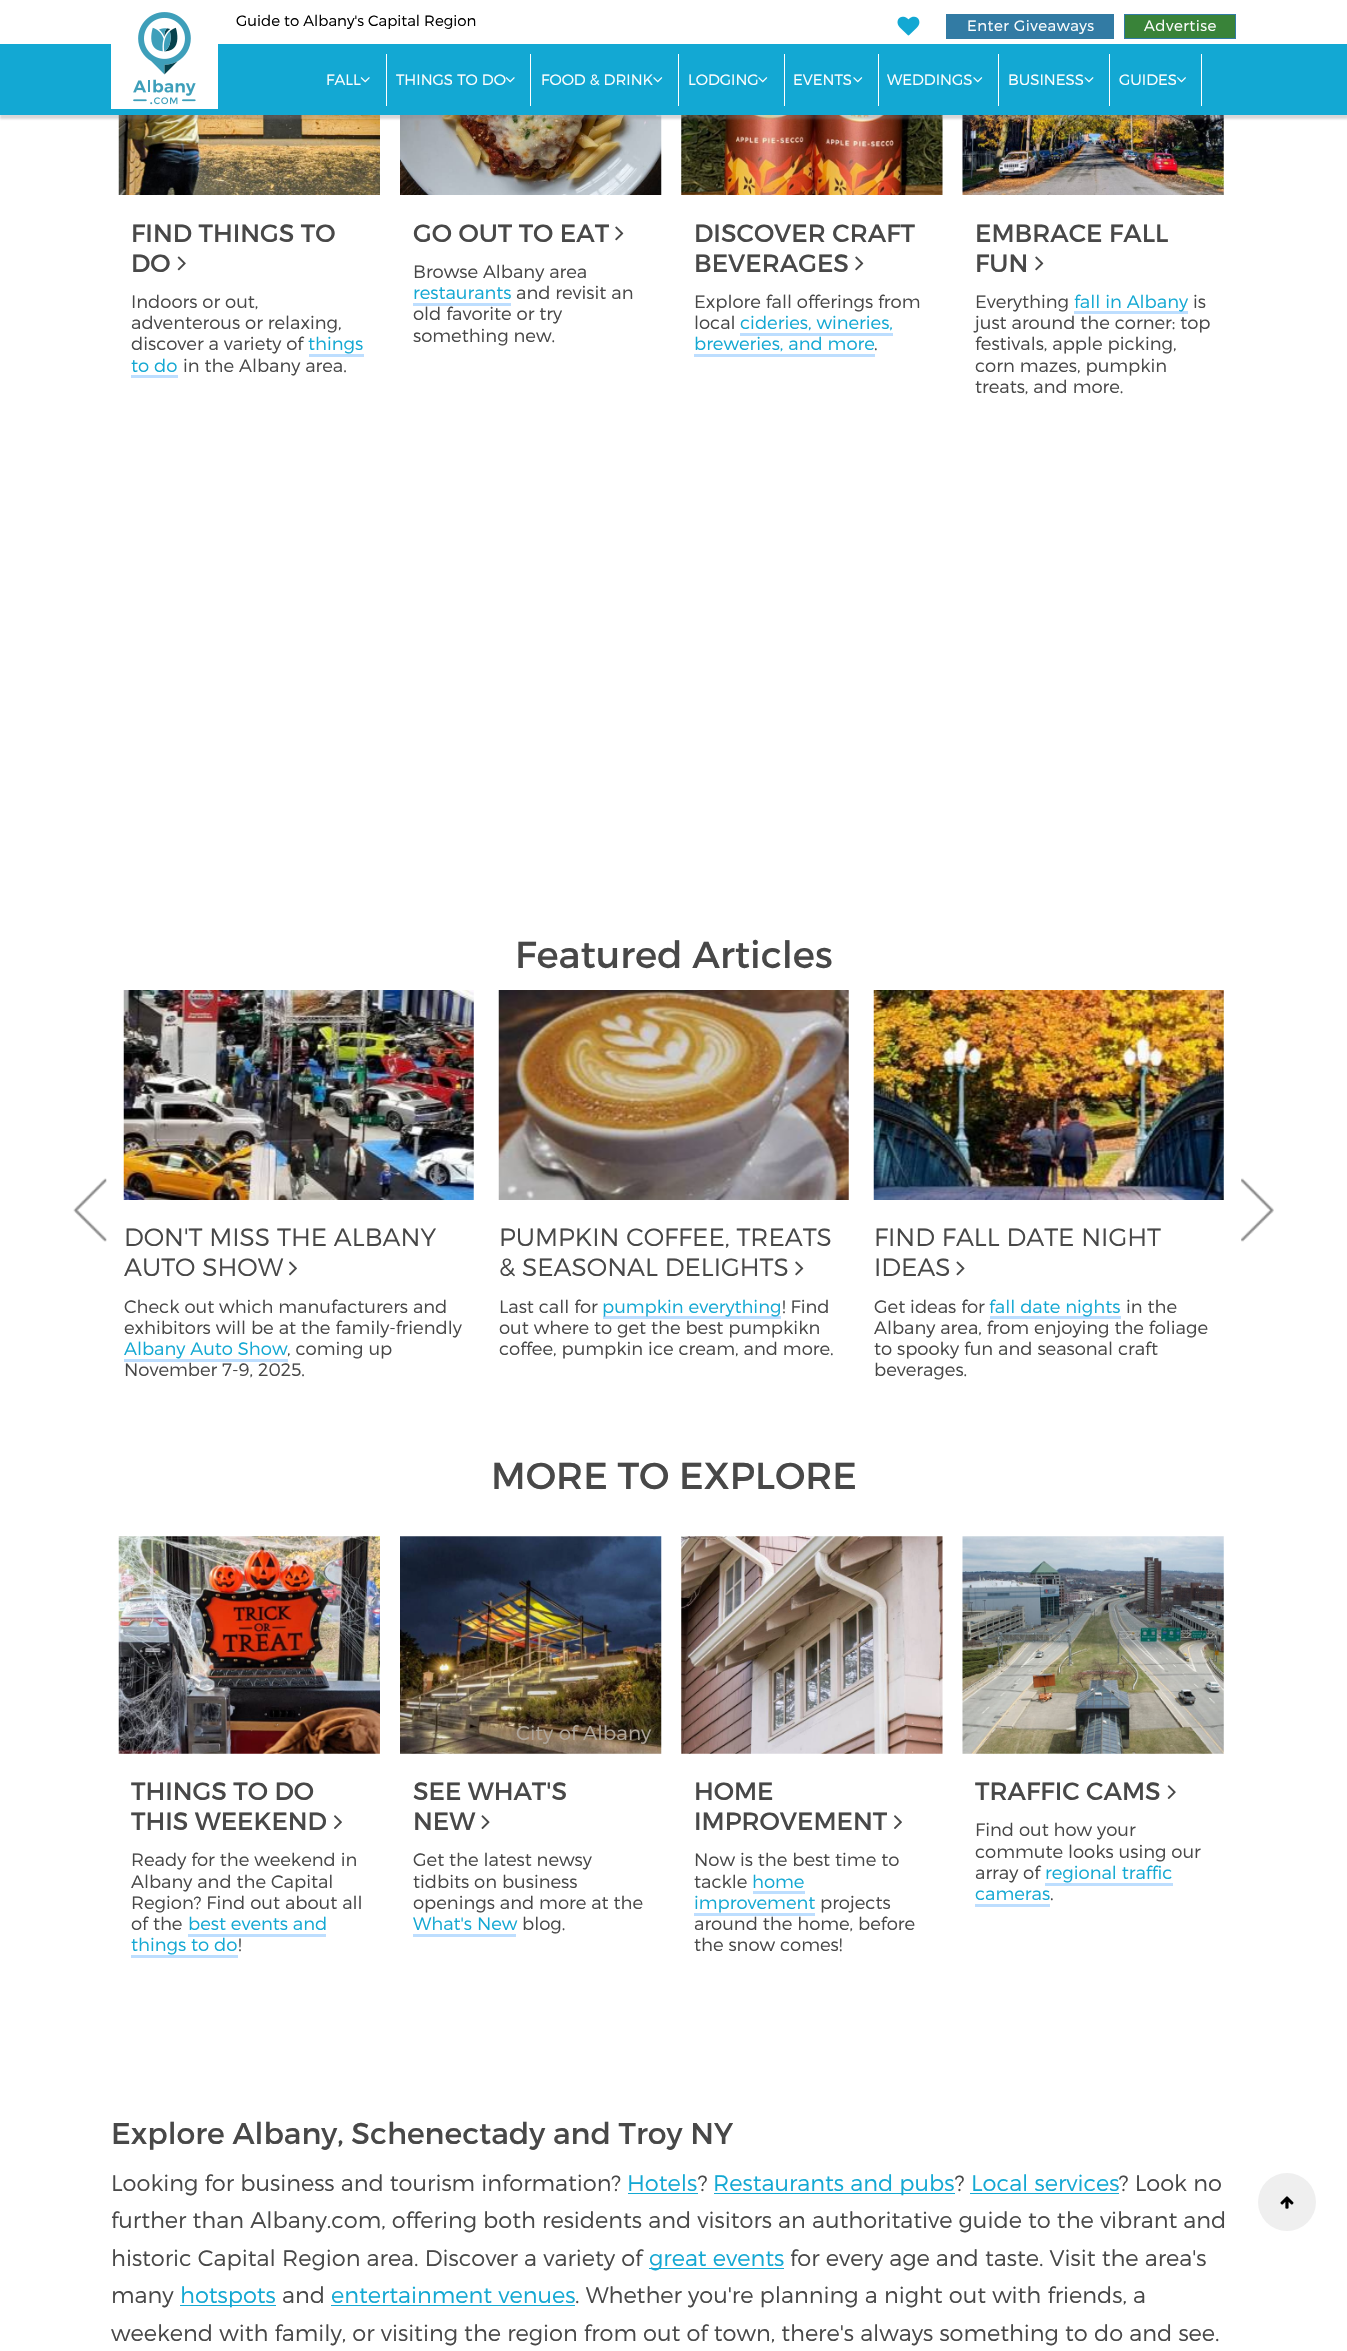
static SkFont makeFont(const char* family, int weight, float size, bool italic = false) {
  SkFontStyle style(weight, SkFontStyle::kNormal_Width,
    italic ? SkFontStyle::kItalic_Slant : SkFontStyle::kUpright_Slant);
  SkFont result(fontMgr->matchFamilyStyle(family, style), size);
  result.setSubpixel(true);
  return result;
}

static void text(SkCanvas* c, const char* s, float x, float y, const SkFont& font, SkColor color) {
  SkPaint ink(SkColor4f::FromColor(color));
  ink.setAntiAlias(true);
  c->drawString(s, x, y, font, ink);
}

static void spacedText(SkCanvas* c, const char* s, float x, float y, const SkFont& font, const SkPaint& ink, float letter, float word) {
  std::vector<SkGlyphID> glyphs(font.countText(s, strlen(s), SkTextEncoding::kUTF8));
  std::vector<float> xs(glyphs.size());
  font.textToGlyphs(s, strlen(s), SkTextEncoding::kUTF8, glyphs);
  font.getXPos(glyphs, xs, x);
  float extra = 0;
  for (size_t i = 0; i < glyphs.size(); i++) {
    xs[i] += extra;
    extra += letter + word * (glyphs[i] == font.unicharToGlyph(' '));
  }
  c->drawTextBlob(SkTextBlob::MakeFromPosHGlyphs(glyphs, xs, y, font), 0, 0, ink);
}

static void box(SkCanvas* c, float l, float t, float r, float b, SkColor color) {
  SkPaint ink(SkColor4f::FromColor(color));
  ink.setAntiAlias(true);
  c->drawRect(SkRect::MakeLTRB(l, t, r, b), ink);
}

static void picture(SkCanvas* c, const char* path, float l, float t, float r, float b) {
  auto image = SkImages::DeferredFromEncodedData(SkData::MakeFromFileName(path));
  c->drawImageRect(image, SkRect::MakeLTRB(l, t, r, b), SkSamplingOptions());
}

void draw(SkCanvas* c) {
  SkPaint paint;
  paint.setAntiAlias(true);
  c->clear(0xffffffff);
  SkFont face1 = makeFont("Montserrat", 300, 15);
  text(c, "Guide to Albany's Capital Region", 236, 26, face1, 0xff000000);
  picture(c, "img_01.png", 897, 16, 920, 36);
  box(c, 946, 14, 1114, 39, 0xff327ba4);
  paint.setColor(0xffffffff);
  spacedText(c, "Enter Giveaways", 967, 31, face1, paint, 0.5f, 0);
  paint.setColor(0xff398339);
  c->drawRect(SkRect::MakeLTRB(1124.5f, 14.5f, 1235.5f, 38.5f), paint);
  paint.setStyle(SkPaint::kStroke_Style);
  paint.setStrokeWidth(1);
  paint.setColor(0xff327ba4);
  c->drawRect(SkRect::MakeLTRB(1124.5f, 14.5f, 1235.5f, 38.5f), paint);
  paint.setStyle(SkPaint::kFill_Style);
  paint.setColor(0xffffffff);
  spacedText(c, "Advertise", 1144, 31, face1, paint, 0.5f, 0);
  picture(c, "img_07.png", 118, 115, 380, 195);
  picture(c, "img_09.png", 400, 115, 662, 195);
  picture(c, "img_11.png", 681, 115, 943, 195);
  picture(c, "img_12.png", 962, 115, 1224, 195);
  paint.setColor(0x52858385);
  paint.setMaskFilter(SkMaskFilter::MakeBlur(kNormal_SkBlurStyle, 1));
  c->drawRect(SkRect::MakeLTRB(0, 48, 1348, 119), paint);
  paint.setMaskFilter(nullptr);
  box(c, 0, 44, 1347, 115, 0xff13a8d3);
  picture(c, "img_02.png", 111, 12, 218, 109);
  box(c, 386, 54, 387, 106, 0xffffffff);
  text(c, "FALL", 326, 85, face1, 0xffffffff);
  picture(c, "img_03.png", 360, 77, 370, 83);
  box(c, 530, 54, 531, 106, 0xffffffff);
  text(c, "THINGS TO DO", 396, 85, face1, 0xffffffff);
  picture(c, "img_03.png", 505, 77, 515, 83);
  box(c, 678, 54, 679, 106, 0xffffffff);
  text(c, "FOOD & DRINK", 541, 85, face1, 0xffffffff);
  picture(c, "img_04.png", 653, 77, 663, 83);
  box(c, 784, 54, 785, 106, 0xffffffff);
  text(c, "LODGING", 688, 85, face1, 0xffffffff);
  picture(c, "img_04.png", 758, 77, 768, 83);
  box(c, 878, 54, 879, 106, 0xffffffff);
  text(c, "EVENTS", 793, 85, face1, 0xffffffff);
  picture(c, "img_04.png", 853, 77, 863, 83);
  box(c, 998, 54, 999, 106, 0xffffffff);
  text(c, "WEDDINGS", 887, 85, face1, 0xffffffff);
  picture(c, "img_04.png", 973, 77, 983, 83);
  box(c, 1109, 54, 1110, 106, 0xffffffff);
  text(c, "BUSINESS", 1008, 85, face1, 0xffffffff);
  picture(c, "img_05.png", 1084, 77, 1094, 83);
  box(c, 1201, 54, 1202, 106, 0xffffffff);
  text(c, "GUIDES", 1119, 85, face1, 0xffffffff);
  picture(c, "img_06.png", 1177, 77, 1186, 83);
  SkFont face2 = makeFont("Montserrat", 400, 25);
  text(c, "FIND THINGS TO", 131, 242, face2, 0xff484848);
  text(c, "DO", 131, 272, face2, 0xff484848);
  picture(c, "img_08.png", 177, 256, 186, 271);
  SkFont face3 = makeFont("Montserrat", 300, 18);
  text(c, "Indoors or out,", 131, 308, face3, 0xff484848);
  text(c, "adventerous or relaxing,", 131, 329, face3, 0xff484848);
  text(c, "discover a variety of", 131, 350, face3, 0xff484848);
  text(c, "things", 308, 350, face3, 0xff13a8d3);
  box(c, 309, 354, 364, 357, 0xffbddeff);
  text(c, "to do", 131, 372, face3, 0xff13a8d3);
  box(c, 131, 375, 178, 378, 0xffbddeff);
  text(c, "in the Albany area.", 183, 372, face3, 0xff484848);
  text(c, "GO OUT TO EAT", 413, 242, face2, 0xff484848);
  picture(c, "img_10.png", 615, 226, 624, 241);
  text(c, "Browse Albany area", 413, 278, face3, 0xff484848);
  text(c, "restaurants", 413, 299, face3, 0xff13a8d3);
  box(c, 413, 303, 511, 306, 0xffbddeff);
  text(c, "and revisit an", 516, 299, face3, 0xff484848);
  text(c, "old favorite or try", 413, 320, face3, 0xff484848);
  text(c, "something new.", 413, 342, face3, 0xff484848);
  text(c, "DISCOVER CRAFT", 694, 242, face2, 0xff484848);
  text(c, "BEVERAGES", 694, 272, face2, 0xff484848);
  picture(c, "img_10.png", 855, 256, 864, 271);
  text(c, "Explore fall offerings from", 694, 308, face3, 0xff484848);
  text(c, "local", 694, 329, face3, 0xff484848);
  text(c, "cideries, wineries,", 740, 329, face3, 0xff13a8d3);
  text(c, "breweries, and more", 694, 350, face3, 0xff13a8d3);
  box(c, 740, 333, 893, 336, 0xffbddeff);
  box(c, 694, 354, 875, 357, 0xffbddeff);
  text(c, ".", 874, 350, face3, 0xff484848);
  text(c, "EMBRACE FALL", 975, 242, face2, 0xff484848);
  text(c, "FUN", 975, 272, face2, 0xff484848);
  picture(c, "img_10.png", 1035, 256, 1044, 271);
  text(c, "Everything", 975, 308, face3, 0xff484848);
  box(c, 1074, 311, 1188, 314, 0xffbddeff);
  text(c, "fall in Albany", 1074, 308, face3, 0xff13a8d3);
  text(c, "is", 1193, 308, face3, 0xff484848);
  text(c, "just around the corner: top", 975, 329, face3, 0xff484848);
  text(c, "festivals, apple picking,", 975, 350, face3, 0xff484848);
  text(c, "corn mazes, pumpkin", 975, 372, face3, 0xff484848);
  text(c, "treats, and more.", 975, 393, face3, 0xff484848);
  SkFont face4 = makeFont("Montserrat", 400, 37.5f);
  text(c, "Featured Articles", 515, 968, face4, 0xff484848);
  picture(c, "img_13.png", 73, 1178, 107, 1242);
  picture(c, "img_14.png", 1241, 1178, 1274, 1242);
  picture(c, "img_15.png", 123, 990, 474, 1200);
  SkFont face5 = makeFont("Montserrat", 300, 25);
  text(c, "DON'T MISS THE ALBANY", 124, 1246, face5, 0xff484848);
  text(c, "AUTO SHOW", 124, 1276, face5, 0xff484848);
  picture(c, "img_16.png", 289, 1261, 297, 1276);
  text(c, "Check out which manufacturers and", 124, 1313, face3, 0xff484848);
  text(c, "exhibitors will be at the family-friendly", 124, 1334, face3, 0xff484848);
  text(c, "Albany Auto Show", 124, 1355, face3, 0xff13a8d3);
  text(c, ", coming up", 287, 1355, face3, 0xff484848);
  text(c, "November 7-9, 2025.", 124, 1376, face3, 0xff484848);
  box(c, 124, 1359, 288, 1362, 0xffbddeff);
  picture(c, "img_17.png", 498, 990, 849, 1200);
  text(c, "PUMPKIN COFFEE, TREATS", 499, 1246, face5, 0xff484848);
  text(c, "& SEASONAL DELIGHTS", 499, 1276, face5, 0xff484848);
  picture(c, "img_10.png", 795, 1261, 804, 1276);
  text(c, "Last call for", 499, 1313, face3, 0xff484848);
  box(c, 603, 1316, 781, 1319, 0xffbddeff);
  text(c, "pumpkin everything", 602, 1313, face3, 0xff13a8d3);
  text(c, "! Find", 782, 1313, face3, 0xff484848);
  text(c, "out where to get the best pumpkikn", 499, 1334, face3, 0xff484848);
  text(c, "coffee, pumpkin ice cream, and more.", 499, 1355, face3, 0xff484848);
  picture(c, "img_18.png", 873, 990, 1224, 1200);
  text(c, "FIND FALL DATE NIGHT", 874, 1246, face5, 0xff484848);
  text(c, "IDEAS", 874, 1276, face5, 0xff484848);
  picture(c, "img_19.png", 956, 1261, 965, 1276);
  text(c, "Get ideas for", 874, 1313, face3, 0xff484848);
  box(c, 990, 1316, 1121, 1319, 0xffbddeff);
  text(c, "fall date nights", 989, 1313, face3, 0xff13a8d3);
  text(c, "in the", 1126, 1313, face3, 0xff484848);
  text(c, "Albany area, from enjoying the foliage", 874, 1334, face3, 0xff484848);
  text(c, "to spooky fun and seasonal craft", 874, 1355, face3, 0xff484848);
  text(c, "beverages.", 874, 1376, face3, 0xff484848);
  text(c, "MORE TO EXPLORE", 491, 1489, face4, 0xff484848);
  picture(c, "img_20.png", 118, 1536, 380, 1754);
  text(c, "THINGS TO DO", 131, 1800, face2, 0xff484848);
  text(c, "THIS WEEKEND", 131, 1830, face2, 0xff484848);
  picture(c, "img_21.png", 334, 1815, 342, 1829);
  text(c, "Ready for the weekend in", 131, 1866, face3, 0xff484848);
  text(c, "Albany and the Capital", 131, 1888, face3, 0xff484848);
  text(c, "Region? Find out about all", 131, 1909, face3, 0xff484848);
  text(c, "of the", 131, 1930, face3, 0xff484848);
  text(c, "best events and", 188, 1930, face3, 0xff13a8d3);
  text(c, "things to do", 131, 1951, face3, 0xff13a8d3);
  box(c, 188, 1934, 326, 1937, 0xffbddeff);
  box(c, 131, 1955, 238, 1958, 0xffbddeff);
  text(c, "!", 238, 1951, face3, 0xff484848);
  picture(c, "img_22.png", 400, 1536, 662, 1754);
  SkFont face6 = makeFont("Montserrat", 300, 20);
  text(c, "City of Albany", 516, 1740, face6, 0xffafa69b);
  text(c, "SEE WHAT'S", 413, 1800, face2, 0xff484848);
  text(c, "NEW", 413, 1830, face2, 0xff484848);
  picture(c, "img_23.png", 481, 1815, 490, 1830);
  text(c, "Get the latest newsy", 413, 1866, face3, 0xff484848);
  text(c, "tidbits on business", 413, 1888, face3, 0xff484848);
  text(c, "openings and more at the", 413, 1909, face3, 0xff484848);
  text(c, "What's New", 413, 1930, face3, 0xff13a8d3);
  box(c, 413, 1934, 516, 1937, 0xffbddeff);
  text(c, "blog.", 522, 1930, face3, 0xff484848);
  picture(c, "img_24.png", 681, 1536, 943, 1754);
  text(c, "HOME", 694, 1800, face2, 0xff484848);
  text(c, "IMPROVEMENT", 694, 1830, face2, 0xff484848);
  picture(c, "img_21.png", 894, 1815, 902, 1829);
  text(c, "Now is the best time to", 694, 1866, face3, 0xff484848);
  text(c, "tackle", 694, 1888, face3, 0xff484848);
  text(c, "home", 752, 1888, face3, 0xff13a8d3);
  box(c, 753, 1891, 805, 1894, 0xffbddeff);
  text(c, "improvement", 694, 1909, face3, 0xff13a8d3);
  box(c, 694, 1913, 815, 1916, 0xffbddeff);
  text(c, "projects", 820, 1909, face3, 0xff484848);
  text(c, "around the home, before", 694, 1930, face3, 0xff484848);
  text(c, "the snow comes!", 694, 1951, face3, 0xff484848);
  picture(c, "img_25.png", 962, 1536, 1224, 1754);
  text(c, "TRAFFIC CAMS", 975, 1800, face2, 0xff484848);
  picture(c, "img_26.png", 1167, 1785, 1176, 1800);
  text(c, "Find out how your", 975, 1836, face3, 0xff484848);
  text(c, "commute looks using our", 975, 1858, face3, 0xff484848);
  text(c, "array of", 975, 1879, face3, 0xff484848);
  text(c, "regional traffic", 1045, 1879, face3, 0xff13a8d3);
  box(c, 1045, 1883, 1173, 1886, 0xffbddeff);
  text(c, "cameras", 975, 1900, face3, 0xff13a8d3);
  box(c, 975, 1904, 1050, 1907, 0xffbddeff);
  text(c, ".", 1050, 1900, face3, 0xff484848);
  SkFont face7 = makeFont("Montserrat", 400, 30);
  text(c, "Explore Albany, Schenectady and Troy NY", 111, 2144, face7, 0xff484848);
  SkFont face8 = makeFont("Montserrat", 300, 22.5f);
  text(c, "Looking for business and tourism information?", 111, 2191, face8, 0xff484848);
  text(c, "Hotels", 627, 2191, face8, 0xff13a8d3);
  box(c, 628, 2193, 698, 2194, 0xff13a8d3);
  text(c, "?", 698, 2191, face8, 0xff484848);
  box(c, 714, 2193, 955, 2194, 0xff13a8d3);
  text(c, "Restaurants and pubs", 713, 2191, face8, 0xff13a8d3);
  text(c, "?", 955, 2191, face8, 0xff484848);
  text(c, "Local services", 971, 2191, face8, 0xff13a8d3);
  box(c, 970, 2193, 1119, 2194, 0xff13a8d3);
  text(c, "? Look no", 1119, 2191, face8, 0xff484848);
  text(c, "further than Albany.com, offering both residents and visitors an authoritative guide to the vibrant and", 111, 2228, face8, 0xff484848);
  text(c, "historic Capital Region area. Discover a variety of", 111, 2266, face8, 0xff484848);
  box(c, 649, 2268, 784, 2269, 0xff13a8d3);
  text(c, "great events", 649, 2266, face8, 0xff13a8d3);
  text(c, "for every age and taste. Visit the area's", 790, 2266, face8, 0xff484848);
  text(c, "many", 111, 2303, face8, 0xff484848);
  box(c, 180, 2305, 276, 2306, 0xff13a8d3);
  text(c, "hotspots", 180, 2303, face8, 0xff13a8d3);
  text(c, "and", 282, 2303, face8, 0xff484848);
  text(c, "entertainment venues", 331, 2303, face8, 0xff13a8d3);
  box(c, 331, 2305, 575, 2306, 0xff13a8d3);
  text(c, ". Whether you're planning a night out with friends, a", 575, 2303, face8, 0xff484848);
  text(c, "weekend with family, or visiting the region from out of town, there's always something to do and see.", 111, 2341, face8, 0xff484848);
  paint.setColor(0xffefefef);
  c->drawCircle(1287, 2202, 29, paint);
  picture(c, "img_27.png", 1280, 2196, 1294, 2209);
}
